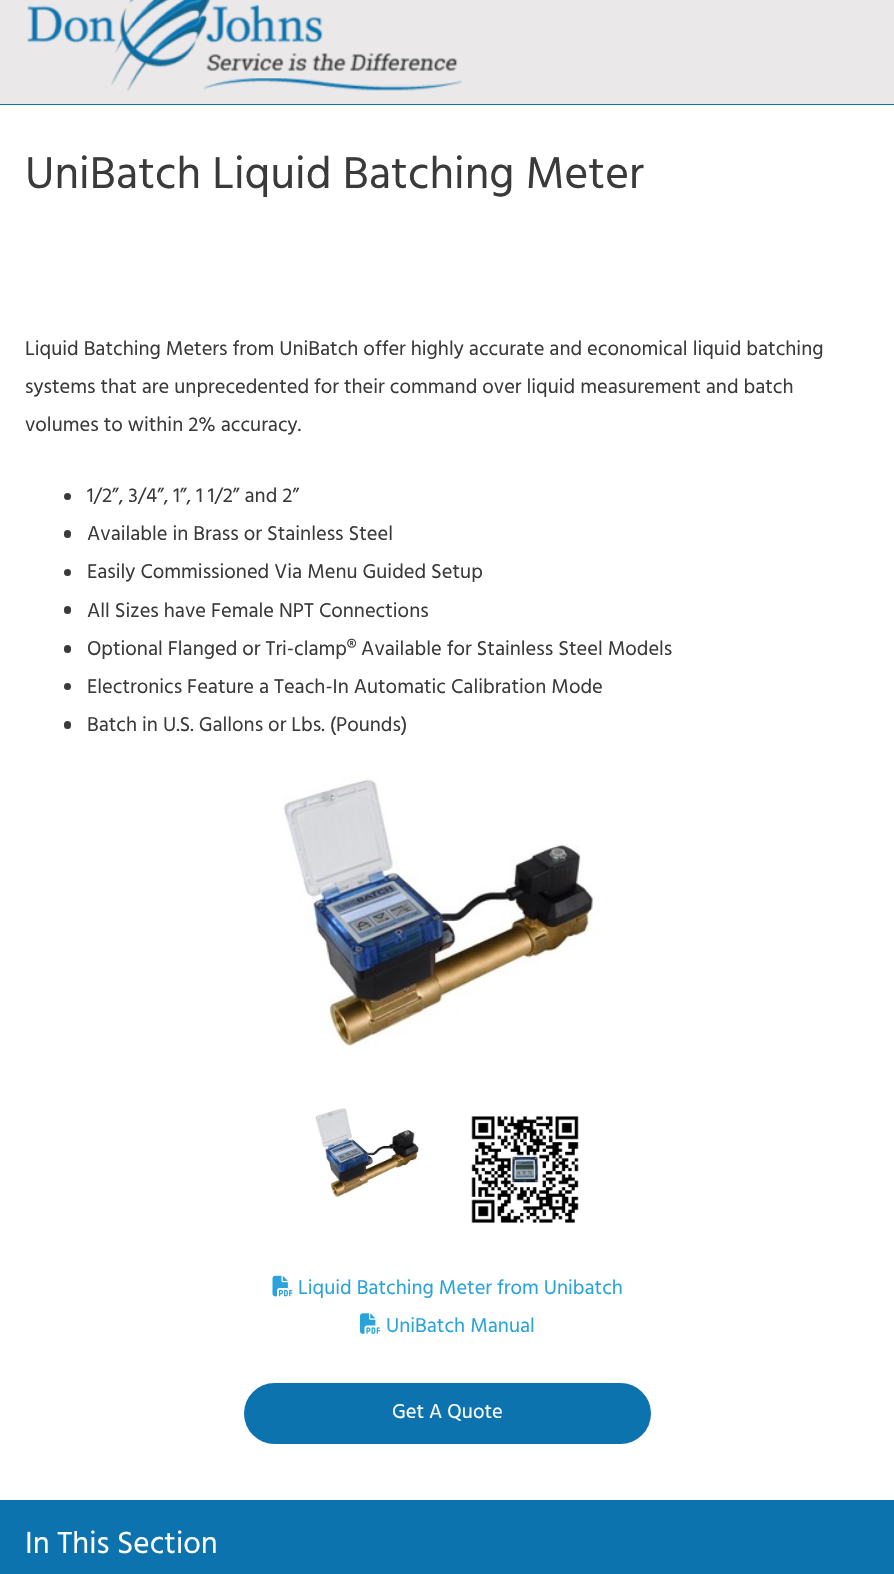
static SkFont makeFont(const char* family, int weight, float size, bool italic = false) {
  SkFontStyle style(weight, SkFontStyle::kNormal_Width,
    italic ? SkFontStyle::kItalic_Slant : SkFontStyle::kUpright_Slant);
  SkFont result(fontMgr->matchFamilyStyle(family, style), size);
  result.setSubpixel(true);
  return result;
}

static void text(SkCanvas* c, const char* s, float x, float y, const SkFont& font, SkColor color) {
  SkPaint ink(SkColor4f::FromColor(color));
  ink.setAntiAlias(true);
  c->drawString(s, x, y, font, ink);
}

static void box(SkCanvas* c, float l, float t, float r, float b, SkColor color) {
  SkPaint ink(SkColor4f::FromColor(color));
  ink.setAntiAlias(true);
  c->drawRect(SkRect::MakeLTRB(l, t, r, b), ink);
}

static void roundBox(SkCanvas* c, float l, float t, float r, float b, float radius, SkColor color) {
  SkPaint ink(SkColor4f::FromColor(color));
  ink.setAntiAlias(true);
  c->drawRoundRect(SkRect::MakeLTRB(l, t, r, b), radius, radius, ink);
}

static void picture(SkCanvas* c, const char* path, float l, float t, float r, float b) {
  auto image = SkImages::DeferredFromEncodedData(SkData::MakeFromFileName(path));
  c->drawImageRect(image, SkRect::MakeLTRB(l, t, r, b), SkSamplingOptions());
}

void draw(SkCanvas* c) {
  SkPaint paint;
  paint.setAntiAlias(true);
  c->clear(0xffffffff);
  box(c, 0, 0, 894, 104, 0xffeae8e8);
  box(c, 0, 104, 894, 105, 0xff0c73af);
  picture(c, "img_01.png", 27, 0, 462, 91);
  SkFont face1 = makeFont("Hind", 400, 45.6f);
  text(c, "UniBatch Liquid Batching Meter", 25, 188, face1, 0xff3a3a3a);
  SkFont face2 = makeFont("Hind", 400, 20.5f);
  text(c, "Liquid Batching Meters from UniBatch offer highly accurate and economical liquid batching", 25, 355, face2, 0xff3a3a3a);
  text(c, "systems that are unprecedented for their command over liquid measurement and batch", 25, 393, face2, 0xff3a3a3a);
  text(c, "volumes to within 2% accuracy.", 25, 431, face2, 0xff3a3a3a);
  paint.setColor(0xff3a3a3a);
  c->drawCircle(67.5f, 496.5f, 3.5f, paint);
  text(c, "1/2”, 3/4”, 1”, 1 1/2” and 2”", 87, 502, face2, 0xff3a3a3a);
  roundBox(c, 64, 530, 71, 538, 3.5f, 0xff3a3a3a);
  text(c, "Available in Brass or Stainless Steel", 87, 540, face2, 0xff3a3a3a);
  c->drawCircle(67.5f, 572.5f, 3.5f, paint);
  text(c, "Easily Commissioned Via Menu Guided Setup", 87, 578, face2, 0xff3a3a3a);
  roundBox(c, 64, 606, 71, 614, 3.5f, 0xff3a3a3a);
  text(c, "All Sizes have Female NPT Connections", 87, 617, face2, 0xff3a3a3a);
  roundBox(c, 64, 645, 71, 653, 3.5f, 0xff3a3a3a);
  text(c, "Optional Flanged or Tri-clamp® Available for Stainless Steel Models", 87, 655, face2, 0xff3a3a3a);
  c->drawCircle(67.5f, 686.5f, 3.5f, paint);
  text(c, "Electronics Feature a Teach-In Automatic Calibration Mode", 87, 693, face2, 0xff3a3a3a);
  roundBox(c, 64, 721, 71, 729, 3.5f, 0xff3a3a3a);
  text(c, "Batch in U.S. Gallons or Lbs. (Pounds)", 87, 731, face2, 0xff3a3a3a);
  picture(c, "img_02.png", 283, 776, 600, 1051);
  picture(c, "img_03.png", 315, 1108, 421, 1198);
  picture(c, "img_04.png", 471, 1116, 579, 1223);
  picture(c, "img_05.png", 272, 1275, 293, 1297);
  text(c, "Liquid Batching Meter from Unibatch", 298, 1294, face2, 0xff29a3d9);
  picture(c, "img_06.png", 360, 1313, 380, 1334);
  text(c, "UniBatch Manual", 386, 1332, face2, 0xff29a3d9);
  roundBox(c, 244, 1383, 651, 1444, 30.5f, 0xff0c73af);
  text(c, "Get A Quote", 392, 1418, face2, 0xffffffff);
  box(c, 0, 1500, 894, 1574, 0xff0c73af);
  SkFont face3 = makeFont("Hind", 400, 31.25f);
  text(c, "In This Section", 25, 1553, face3, 0xffffffff);
}
